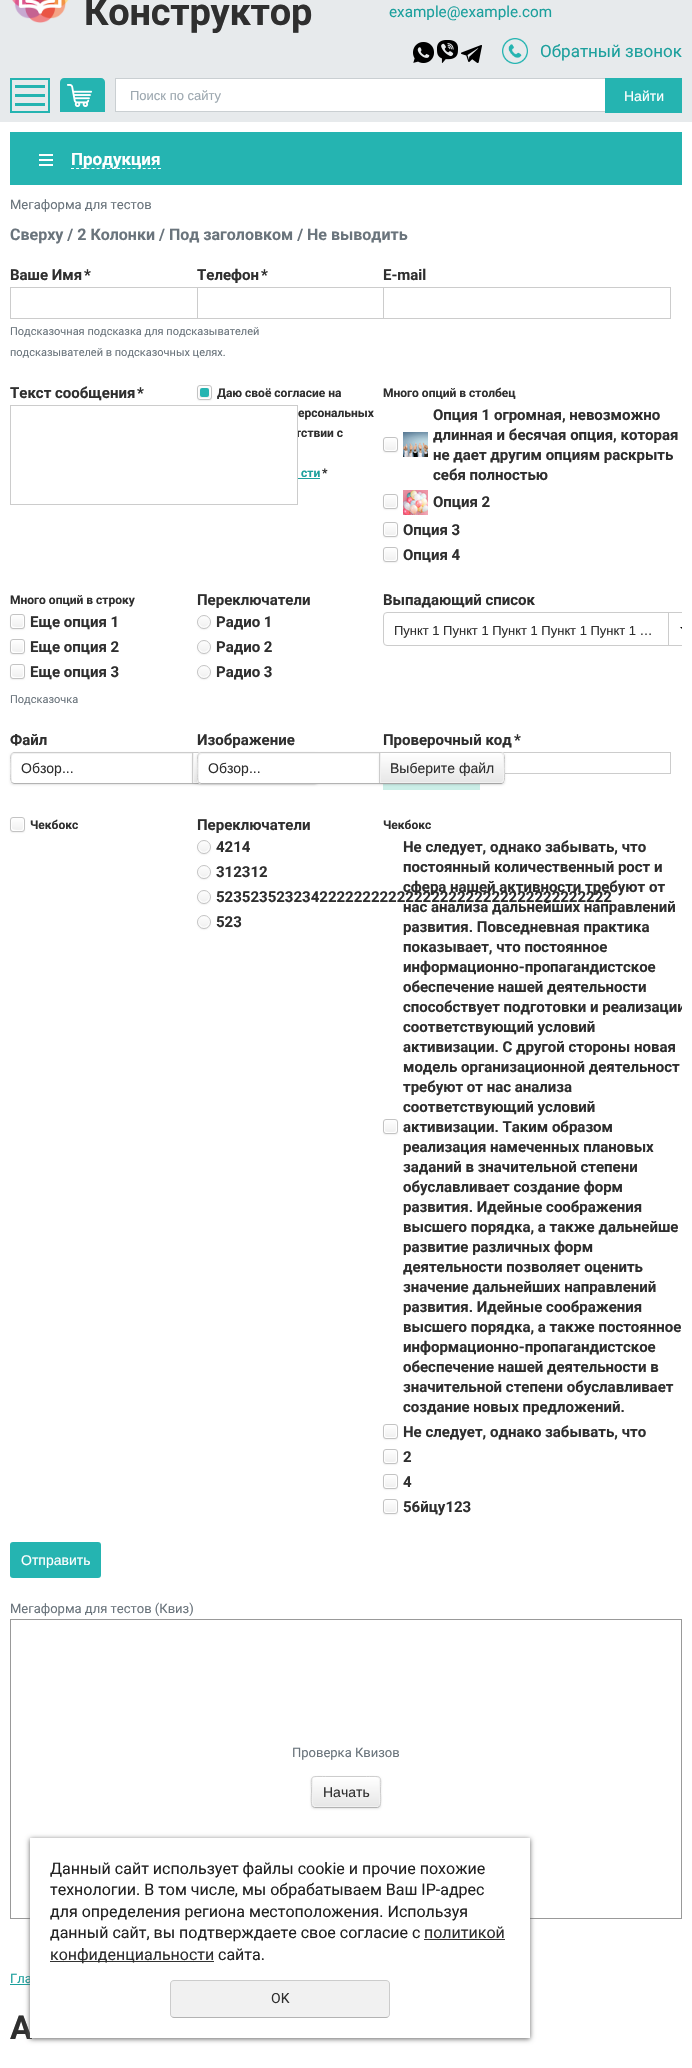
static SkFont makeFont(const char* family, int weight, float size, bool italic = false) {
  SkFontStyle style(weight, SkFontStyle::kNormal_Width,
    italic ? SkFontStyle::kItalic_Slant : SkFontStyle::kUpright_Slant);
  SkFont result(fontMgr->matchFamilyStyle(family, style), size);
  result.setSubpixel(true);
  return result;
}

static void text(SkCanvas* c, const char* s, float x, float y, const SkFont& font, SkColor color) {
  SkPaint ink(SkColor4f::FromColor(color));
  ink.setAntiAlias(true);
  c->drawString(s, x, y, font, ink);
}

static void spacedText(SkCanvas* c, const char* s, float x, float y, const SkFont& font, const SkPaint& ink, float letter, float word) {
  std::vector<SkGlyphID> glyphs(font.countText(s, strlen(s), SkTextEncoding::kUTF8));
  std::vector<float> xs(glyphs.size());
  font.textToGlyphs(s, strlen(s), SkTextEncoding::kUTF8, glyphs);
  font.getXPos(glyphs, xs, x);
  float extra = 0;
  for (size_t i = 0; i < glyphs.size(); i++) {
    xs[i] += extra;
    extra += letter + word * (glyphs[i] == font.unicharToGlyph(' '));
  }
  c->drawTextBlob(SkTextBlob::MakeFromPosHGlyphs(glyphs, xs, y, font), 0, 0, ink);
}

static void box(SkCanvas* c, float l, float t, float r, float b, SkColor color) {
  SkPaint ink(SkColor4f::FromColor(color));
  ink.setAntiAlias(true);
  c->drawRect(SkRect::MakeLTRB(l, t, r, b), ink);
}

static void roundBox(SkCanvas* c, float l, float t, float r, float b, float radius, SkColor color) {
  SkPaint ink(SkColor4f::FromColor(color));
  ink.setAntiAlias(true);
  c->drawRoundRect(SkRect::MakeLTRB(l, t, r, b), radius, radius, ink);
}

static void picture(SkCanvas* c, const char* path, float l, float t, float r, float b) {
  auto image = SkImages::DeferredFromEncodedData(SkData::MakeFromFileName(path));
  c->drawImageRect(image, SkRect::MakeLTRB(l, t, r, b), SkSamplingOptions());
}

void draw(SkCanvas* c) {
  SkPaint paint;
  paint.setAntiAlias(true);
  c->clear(0xffffffff);
  box(c, 0, 0, 692, 122, 0xffe7eaec);
  picture(c, "img_01.png", 12, 0, 69, 23);
  SkFont face1 = makeFont("Roboto", 700, 38);
  paint.setColor(0xff2f2f2f);
  spacedText(c, "Конструктор", 84, 25, face1, paint, -0.25f, 0);
  SkFont face2 = makeFont("Roboto", 400, 15.25f);
  text(c, "example@example.com", 389, 17, face2, 0xff1ca09d);
  picture(c, "img_02.png", 413, 42, 434, 63);
  picture(c, "img_03.png", 437, 40, 458, 63);
  picture(c, "img_04.png", 461, 45, 482, 63);
  picture(c, "img_05.png", 502, 38, 528, 64);
  SkFont face3 = makeFont("Roboto", 400, 17);
  text(c, "Обратный звонок", 540, 57, face3, 0xff1ca09d);
  paint.setStyle(SkPaint::kStroke_Style);
  paint.setStrokeWidth(2);
  paint.setColor(0xff25b4b1);
  c->drawRect(SkRect::MakeLTRB(11, 79, 49, 112), paint);
  box(c, 15, 85, 45, 88, 0xff25b4b1);
  box(c, 15, 94, 45, 97, 0xff25b4b1);
  box(c, 15, 103, 45, 106, 0xff25b4b1);
  paint.setStyle(SkPaint::kFill_Style);
  c->drawPath(SkPathBuilder().moveTo(64, 78).lineTo(101, 78).cubicTo(103, 78, 105, 80, 105, 82).lineTo(105, 112).lineTo(60, 112).lineTo(60, 82).cubicTo(60, 80, 62, 78, 64, 78).close().detach(), paint);
  picture(c, "img_06.png", 67, 84, 92, 107);
  box(c, 116, 79, 605, 111, 0xffffffff);
  box(c, 115, 78, 605, 79, 0xffcacfd2);
  box(c, 115, 111, 605, 112, 0xffcacfd2);
  box(c, 115, 78, 116, 112, 0xffcacfd2);
  SkFont face4 = makeFont("Liberation Sans", 400, 13);
  text(c, "Поиск по сайту", 130, 100, face4, 0xff9da8b0);
  box(c, 605, 78, 682, 113, 0xff25b4b1);
  SkFont face5 = makeFont("Liberation Sans", 400, 14);
  text(c, "Найти", 624, 101, face5, 0xffffffff);
  box(c, 10, 132, 682, 185, 0xff25b4b1);
  picture(c, "img_07.png", 39, 154, 53, 166);
  SkFont face6 = makeFont("Roboto", 700, 17);
  text(c, "Продукция", 71, 165, face6, 0xffffffff);
  paint.setStyle(SkPaint::kStroke_Style);
  paint.setStrokeWidth(1);
  paint.setColor(0xffffffff);
  paint.setPathEffect(SkDashPathEffect::Make({{3, 2.12f}}, 0));
  c->drawPath(SkPathBuilder().moveTo(71, 168.5f).lineTo(161, 168.5f).detach(), paint);
  paint.setPathEffect(nullptr);
  SkFont face7 = makeFont("Roboto", 400, 13);
  text(c, "Мегаформа для тестов", 10, 209, face7, 0xff6a747c);
  SkFont face8 = makeFont("Roboto", 700, 16);
  text(c, "Сверху / 2 Колонки / Под заголовком / Не выводить", 10, 240, face8, 0xff6a747c);
  SkFont face9 = makeFont("Roboto", 700, 15);
  text(c, "Телефон", 197, 280, face9, 0xff2f2f2f);
  text(c, "*", 261, 280, face9, 0xff2f2f2f);
  paint.setColor(0xffcccccc);
  c->drawRect(SkRect::MakeLTRB(10.5f, 287.5f, 297.5f, 318.5f), paint);
  box(c, 297, 288, 298, 318, 0xffffffff);
  c->drawRect(SkRect::MakeLTRB(197.5f, 287.5f, 484.5f, 318.5f), paint);
  text(c, "E-mail", 383, 280, face9, 0xff2f2f2f);
  box(c, 484, 288, 485, 318, 0xffffffff);
  c->drawRect(SkRect::MakeLTRB(383.5f, 287.5f, 670.5f, 318.5f), paint);
  text(c, "Ваше Имя", 10, 280, face9, 0xff2f2f2f);
  text(c, "*", 84, 280, face9, 0xff2f2f2f);
  SkFont face10 = makeFont("Roboto", 400, 11);
  text(c, "Подсказочная подсказка для подсказывателей", 10, 335, face10, 0xff6a747c);
  text(c, "подсказывателей в подсказочных целях.", 10, 356, face10, 0xff6a747c);
  text(c, "Текст сообщения", 10, 398, face9, 0xff2f2f2f);
  text(c, "*", 137, 398, face9, 0xff2f2f2f);
  SkFont face11 = makeFont("Roboto", 700, 12);
  text(c, "тствии с", 295, 437, face11, 0xff2f2f2f);
  box(c, 295, 430, 297, 432, 0xffffffff);
  c->drawRect(SkRect::MakeLTRB(10.5f, 405.5f, 297.5f, 504.5f), paint);
  paint.setStyle(SkPaint::kFill_Style);
  paint.setColor(0x0d000000);
  paint.setMaskFilter(SkMaskFilter::MakeBlur(kNormal_SkBlurStyle, 0.5f));
  c->drawRoundRect(SkRect::MakeLTRB(197, 386, 212, 401), 3, 3, paint);
  paint.setMaskFilter(nullptr);
  picture(c, "img_08.png", 197, 386, 212, 398);
  paint.setColor(0xffffffff);
  c->drawPath(SkPathBuilder().moveTo(199, 386).cubicTo(198.5f, 386.5f, 198, 387, 198, 388).lineTo(198, 397).cubicTo(198, 398, 199, 399, 200, 399).lineTo(209, 399).cubicTo(210, 399, 210.5f, 398.5f, 211, 398).cubicTo(209.5f, 398.5f, 200.5f, 398, 199.5f, 397.5f).lineTo(199, 396.5f).cubicTo(198.5f, 395.5f, 199, 387, 199, 386).close().detach(), paint);
  c->drawPath(SkPathBuilder().moveTo(198, 398).cubicTo(198.5f, 398.5f, 199, 399, 200, 399).lineTo(209, 399).cubicTo(210, 399, 211, 398, 211, 397).lineTo(211, 388).cubicTo(211, 387, 210.5f, 386.5f, 209.5f, 386).cubicTo(210, 387, 210, 393.5f, 210, 395).lineTo(209.5f, 397.5f).cubicTo(208.5f, 398.5f, 200, 398.5f, 198, 398).close().detach(), paint);
  paint.setStyle(SkPaint::kStroke_Style);
  paint.setColor(0xffc3c3c3);
  c->drawRoundRect(SkRect::MakeLTRB(197.5f, 385.5f, 211.5f, 399.5f), 2.5f, 2.5f, paint);
  roundBox(c, 200, 388, 209, 397, 2, 0xff25b4b1);
  text(c, "Даю своё согласие на", 217, 397, face11, 0xff2f2f2f);
  text(c, "ерсональных", 298, 417, face11, 0xff2f2f2f);
  text(c, "сти", 301, 477, face11, 0xff1ca09d);
  box(c, 298, 478, 320, 479, 0xff1ca09d);
  text(c, "*", 322, 477, face11, 0xff2f2f2f);
  text(c, "Много опций в столбец", 383, 397, face11, 0xff2f2f2f);
  paint.setStyle(SkPaint::kFill_Style);
  paint.setColor(0x0d000000);
  paint.setMaskFilter(SkMaskFilter::MakeBlur(kNormal_SkBlurStyle, 0.5f));
  c->drawRoundRect(SkRect::MakeLTRB(383, 438, 398, 453), 3, 3, paint);
  paint.setMaskFilter(nullptr);
  picture(c, "img_08.png", 383, 438, 398, 450);
  paint.setColor(0xffffffff);
  c->drawPath(SkPathBuilder().moveTo(385, 438).cubicTo(384.5f, 438.5f, 384, 439, 384, 440).lineTo(384, 449).cubicTo(384, 450, 385, 451, 386, 451).lineTo(395, 451).cubicTo(396, 451, 396.5f, 450.5f, 397, 450).cubicTo(395.5f, 450.5f, 386.5f, 450, 385.5f, 449.5f).lineTo(385, 448.5f).cubicTo(384.5f, 447.5f, 385, 439, 385, 438).close().detach(), paint);
  c->drawPath(SkPathBuilder().moveTo(384, 450).cubicTo(384.5f, 450.5f, 385, 451, 386, 451).lineTo(395, 451).cubicTo(396, 451, 397, 450, 397, 449).lineTo(397, 440).cubicTo(397, 439, 396.5f, 438.5f, 395.5f, 438).cubicTo(396, 439, 396, 445.5f, 396, 447).lineTo(395.5f, 449.5f).cubicTo(394.5f, 450.5f, 386, 450.5f, 384, 450).close().detach(), paint);
  paint.setStyle(SkPaint::kStroke_Style);
  paint.setColor(0xffc3c3c3);
  c->drawRoundRect(SkRect::MakeLTRB(383.5f, 437.5f, 397.5f, 451.5f), 2.5f, 2.5f, paint);
  picture(c, "img_09.png", 403, 432, 428, 457);
  text(c, "Опция 1 огромная, невозможно", 433, 420, face9, 0xff2f2f2f);
  text(c, "длинная и бесячая опция, которая", 433, 440, face9, 0xff2f2f2f);
  text(c, "не дает другим опциям раскрыть", 433, 460, face9, 0xff2f2f2f);
  text(c, "себя полностью", 433, 480, face9, 0xff2f2f2f);
  paint.setStyle(SkPaint::kFill_Style);
  paint.setColor(0x0d000000);
  paint.setMaskFilter(SkMaskFilter::MakeBlur(kNormal_SkBlurStyle, 0.5f));
  c->drawRoundRect(SkRect::MakeLTRB(383, 495, 398, 510), 3, 3, paint);
  paint.setMaskFilter(nullptr);
  picture(c, "img_08.png", 383, 495, 398, 507);
  paint.setColor(0xffffffff);
  c->drawPath(SkPathBuilder().moveTo(385, 495).cubicTo(384.5f, 495.5f, 384, 496, 384, 497).lineTo(384, 506).cubicTo(384, 507, 385, 508, 386, 508).lineTo(395, 508).cubicTo(396, 508, 396.5f, 507.5f, 397, 507).cubicTo(395.5f, 507.5f, 386.5f, 507, 385.5f, 506.5f).lineTo(385, 505.5f).cubicTo(385, 504, 385, 496, 385, 495).close().detach(), paint);
  c->drawPath(SkPathBuilder().moveTo(384, 506.5f).cubicTo(384.5f, 507.5f, 385, 508, 386, 508).lineTo(395, 508).cubicTo(396, 508, 397, 507, 397, 506).lineTo(397, 497).cubicTo(397, 496, 396.5f, 495.5f, 395.5f, 495).cubicTo(396, 496, 396, 503, 396, 504).lineTo(395.5f, 506.5f).cubicTo(394.5f, 507.5f, 386, 507.5f, 384, 506.5f).close().detach(), paint);
  paint.setStyle(SkPaint::kStroke_Style);
  paint.setColor(0xffc3c3c3);
  c->drawRoundRect(SkRect::MakeLTRB(383.5f, 494.5f, 397.5f, 508.5f), 2.5f, 2.5f, paint);
  picture(c, "img_10.png", 403, 490, 428, 515);
  text(c, "Опция 2", 433, 507, face9, 0xff2f2f2f);
  paint.setStyle(SkPaint::kFill_Style);
  paint.setColor(0x0d000000);
  paint.setMaskFilter(SkMaskFilter::MakeBlur(kNormal_SkBlurStyle, 0.5f));
  c->drawRoundRect(SkRect::MakeLTRB(383, 523, 398, 538), 3, 3, paint);
  paint.setMaskFilter(nullptr);
  picture(c, "img_08.png", 383, 523, 398, 535);
  paint.setColor(0xffffffff);
  c->drawPath(SkPathBuilder().moveTo(385, 523).cubicTo(384.5f, 523.5f, 384, 524, 384, 525).lineTo(384, 534).cubicTo(384, 535, 385, 536, 386, 536).lineTo(395, 536).cubicTo(396, 536, 396.5f, 535.5f, 397, 535).cubicTo(395.5f, 535.5f, 386.5f, 535, 385.5f, 534.5f).lineTo(385, 533.5f).cubicTo(385, 532, 385, 524, 385, 523).close().detach(), paint);
  c->drawPath(SkPathBuilder().moveTo(384, 534.5f).cubicTo(384.5f, 535.5f, 385, 536, 386, 536).lineTo(395, 536).cubicTo(396, 536, 397, 535, 397, 534).lineTo(397, 525).cubicTo(397, 524, 396.5f, 523.5f, 395.5f, 523).cubicTo(396, 524, 396, 531, 396, 532).lineTo(395.5f, 534.5f).cubicTo(394.5f, 535.5f, 386, 535.5f, 384, 534.5f).close().detach(), paint);
  paint.setStyle(SkPaint::kStroke_Style);
  paint.setColor(0xffc3c3c3);
  c->drawRoundRect(SkRect::MakeLTRB(383.5f, 522.5f, 397.5f, 536.5f), 2.5f, 2.5f, paint);
  text(c, "Опция 3", 403, 535, face9, 0xff2f2f2f);
  paint.setStyle(SkPaint::kFill_Style);
  paint.setColor(0x0d000000);
  paint.setMaskFilter(SkMaskFilter::MakeBlur(kNormal_SkBlurStyle, 0.5f));
  c->drawRoundRect(SkRect::MakeLTRB(383, 548, 398, 563), 3, 3, paint);
  paint.setMaskFilter(nullptr);
  picture(c, "img_08.png", 383, 548, 398, 560);
  paint.setColor(0xffffffff);
  c->drawPath(SkPathBuilder().moveTo(385, 548).cubicTo(384.5f, 548.5f, 384, 549, 384, 550).lineTo(384, 559).cubicTo(384, 560, 385, 561, 386, 561).lineTo(395, 561).cubicTo(396, 561, 396.5f, 560.5f, 397, 560).cubicTo(395.5f, 560.5f, 386.5f, 560, 385.5f, 559.5f).lineTo(385, 558.5f).cubicTo(384.5f, 557.5f, 385, 549, 385, 548).close().detach(), paint);
  c->drawPath(SkPathBuilder().moveTo(384, 560).cubicTo(384.5f, 560.5f, 385, 561, 386, 561).lineTo(395, 561).cubicTo(396, 561, 397, 560, 397, 559).lineTo(397, 550).cubicTo(397, 549, 396.5f, 548.5f, 395.5f, 548).cubicTo(396, 549, 396, 555.5f, 396, 557).lineTo(395.5f, 559.5f).cubicTo(394.5f, 560.5f, 386, 560.5f, 384, 560).close().detach(), paint);
  paint.setStyle(SkPaint::kStroke_Style);
  paint.setColor(0xffc3c3c3);
  c->drawRoundRect(SkRect::MakeLTRB(383.5f, 547.5f, 397.5f, 561.5f), 2.5f, 2.5f, paint);
  text(c, "Опция 4", 403, 560, face9, 0xff2f2f2f);
  text(c, "Много опций в строку", 10, 604, face11, 0xff2f2f2f);
  paint.setStyle(SkPaint::kFill_Style);
  paint.setColor(0x0d000000);
  paint.setMaskFilter(SkMaskFilter::MakeBlur(kNormal_SkBlurStyle, 0.5f));
  c->drawRoundRect(SkRect::MakeLTRB(10, 615, 25, 630), 3, 3, paint);
  paint.setMaskFilter(nullptr);
  picture(c, "img_08.png", 10, 615, 25, 627);
  paint.setColor(0xffffffff);
  c->drawPath(SkPathBuilder().moveTo(12, 615).cubicTo(11.5f, 615.5f, 11, 616, 11, 617).lineTo(11, 626).cubicTo(11, 627, 12, 628, 13, 628).lineTo(22, 628).cubicTo(23, 628, 23.5f, 627.5f, 24, 627).cubicTo(22.5f, 627.5f, 15, 627, 13.5f, 626.5f).lineTo(12.5f, 626).cubicTo(12, 625, 11.5f, 616, 12, 615).close().detach(), paint);
  c->drawPath(SkPathBuilder().moveTo(11, 626.5f).cubicTo(11.5f, 627.5f, 12, 628, 13, 628).lineTo(22, 628).cubicTo(23, 628, 24, 627, 24, 626).lineTo(24, 617).cubicTo(24, 616, 23.5f, 615.5f, 23, 615).lineTo(23, 624).lineTo(22.5f, 626.5f).cubicTo(21.5f, 627.5f, 13, 627.5f, 11, 626.5f).close().detach(), paint);
  paint.setStyle(SkPaint::kStroke_Style);
  paint.setColor(0xffc3c3c3);
  c->drawRoundRect(SkRect::MakeLTRB(10.5f, 614.5f, 24.5f, 628.5f), 2.5f, 2.5f, paint);
  text(c, "Еще опция 1", 30, 627, face9, 0xff2f2f2f);
  paint.setStyle(SkPaint::kFill_Style);
  paint.setColor(0x0d000000);
  paint.setMaskFilter(SkMaskFilter::MakeBlur(kNormal_SkBlurStyle, 0.5f));
  c->drawRoundRect(SkRect::MakeLTRB(10, 640, 25, 655), 3, 3, paint);
  paint.setMaskFilter(nullptr);
  picture(c, "img_08.png", 10, 640, 25, 652);
  paint.setColor(0xffffffff);
  c->drawPath(SkPathBuilder().moveTo(12, 640).cubicTo(11.5f, 640.5f, 11, 641, 11, 642).lineTo(11, 651).cubicTo(11, 652, 12, 653, 13, 653).lineTo(22, 653).cubicTo(23, 653, 23.5f, 652.5f, 24, 652).cubicTo(22.5f, 652.5f, 15, 652, 13.5f, 651.5f).lineTo(12.5f, 651).cubicTo(11.5f, 650, 12, 641, 12, 640).close().detach(), paint);
  c->drawPath(SkPathBuilder().moveTo(11, 651.5f).cubicTo(11.5f, 652.5f, 12, 653, 13, 653).lineTo(22, 653).cubicTo(23, 653, 24, 652, 24, 651).lineTo(24, 642).cubicTo(24, 641, 23.5f, 640.5f, 23, 640).lineTo(23, 649).lineTo(22.5f, 651.5f).cubicTo(21.5f, 652.5f, 13, 652.5f, 11, 651.5f).close().detach(), paint);
  paint.setStyle(SkPaint::kStroke_Style);
  paint.setColor(0xffc3c3c3);
  c->drawRoundRect(SkRect::MakeLTRB(10.5f, 639.5f, 24.5f, 653.5f), 2.5f, 2.5f, paint);
  text(c, "Еще опция 2", 30, 652, face9, 0xff2f2f2f);
  paint.setStyle(SkPaint::kFill_Style);
  paint.setColor(0x0d000000);
  paint.setMaskFilter(SkMaskFilter::MakeBlur(kNormal_SkBlurStyle, 0.5f));
  c->drawRoundRect(SkRect::MakeLTRB(10, 665, 25, 680), 3, 3, paint);
  paint.setMaskFilter(nullptr);
  picture(c, "img_08.png", 10, 665, 25, 677);
  paint.setColor(0xffffffff);
  c->drawPath(SkPathBuilder().moveTo(12, 665).cubicTo(11.5f, 665.5f, 11, 666, 11, 667).lineTo(11, 676).cubicTo(11, 677, 12, 678, 13, 678).lineTo(22, 678).cubicTo(23, 678, 23.5f, 677.5f, 24, 677).cubicTo(22.5f, 677.5f, 15, 677, 13.5f, 676.5f).lineTo(12.5f, 676).cubicTo(12, 675, 11.5f, 666, 12, 665).close().detach(), paint);
  c->drawPath(SkPathBuilder().moveTo(11, 676.5f).cubicTo(11.5f, 677.5f, 12, 678, 13, 678).lineTo(22, 678).cubicTo(23, 678, 24, 677, 24, 676).lineTo(24, 667).cubicTo(24, 666, 23.5f, 665.5f, 23, 665).lineTo(23, 674).lineTo(22.5f, 676.5f).cubicTo(21.5f, 677.5f, 13, 677.5f, 11, 676.5f).close().detach(), paint);
  paint.setStyle(SkPaint::kStroke_Style);
  paint.setColor(0xffc3c3c3);
  c->drawRoundRect(SkRect::MakeLTRB(10.5f, 664.5f, 24.5f, 678.5f), 2.5f, 2.5f, paint);
  text(c, "Еще опция 3", 30, 677, face9, 0xff2f2f2f);
  text(c, "Подсказочка", 10, 703, face10, 0xff6a747c);
  text(c, "Переключатели", 197, 605, face9, 0xff2f2f2f);
  paint.setStyle(SkPaint::kFill_Style);
  paint.setColor(0x0d000000);
  paint.setMaskFilter(SkMaskFilter::MakeBlur(kNormal_SkBlurStyle, 0.5f));
  c->drawRoundRect(SkRect::MakeLTRB(197, 616, 211, 630), 7, 7, paint);
  paint.setMaskFilter(nullptr);
  picture(c, "img_11.png", 198, 615, 210, 627);
  paint.setColor(0xffffffff);
  c->drawPath(SkPathBuilder().moveTo(208.5f, 626).cubicTo(203, 629.5f, 196, 623.5f, 200, 617.5f).cubicTo(194, 623, 203, 632, 208.5f, 626).close().detach(), paint);
  c->drawPath(SkPathBuilder().moveTo(199.5f, 626).cubicTo(205, 632, 214, 623, 208, 617.5f).cubicTo(212, 623.5f, 205, 629.5f, 199.5f, 626).close().detach(), paint);
  paint.setStyle(SkPaint::kStroke_Style);
  paint.setColor(0xffc3c3c3);
  c->drawCircle(204, 622, 6.5f, paint);
  text(c, "Радио 1", 216, 627, face9, 0xff2f2f2f);
  paint.setStyle(SkPaint::kFill_Style);
  paint.setColor(0x0d000000);
  paint.setMaskFilter(SkMaskFilter::MakeBlur(kNormal_SkBlurStyle, 0.5f));
  c->drawRoundRect(SkRect::MakeLTRB(197, 641, 211, 655), 7, 7, paint);
  paint.setMaskFilter(nullptr);
  picture(c, "img_11.png", 198, 640, 210, 652);
  paint.setColor(0xffffffff);
  c->drawPath(SkPathBuilder().moveTo(208.5f, 651).cubicTo(203, 654.5f, 196, 648.5f, 200, 642.5f).cubicTo(194, 648, 203, 657, 208.5f, 651).close().detach(), paint);
  c->drawPath(SkPathBuilder().moveTo(199.5f, 651).cubicTo(205, 657, 214, 648, 208, 642.5f).cubicTo(212, 648.5f, 205, 654.5f, 199.5f, 651).close().detach(), paint);
  paint.setStyle(SkPaint::kStroke_Style);
  paint.setColor(0xffc3c3c3);
  c->drawCircle(204, 647, 6.5f, paint);
  text(c, "Радио 2", 216, 652, face9, 0xff2f2f2f);
  paint.setStyle(SkPaint::kFill_Style);
  paint.setColor(0x0d000000);
  paint.setMaskFilter(SkMaskFilter::MakeBlur(kNormal_SkBlurStyle, 0.5f));
  c->drawRoundRect(SkRect::MakeLTRB(197, 666, 211, 680), 7, 7, paint);
  paint.setMaskFilter(nullptr);
  picture(c, "img_11.png", 198, 665, 210, 677);
  paint.setColor(0xffffffff);
  c->drawPath(SkPathBuilder().moveTo(208.5f, 676).cubicTo(203, 679.5f, 196, 673.5f, 200, 667.5f).cubicTo(194, 673, 203, 682, 208.5f, 676).close().detach(), paint);
  c->drawPath(SkPathBuilder().moveTo(199.5f, 676).cubicTo(205, 682, 214, 673, 208, 667.5f).cubicTo(212, 673.5f, 205, 679.5f, 199.5f, 676).close().detach(), paint);
  paint.setStyle(SkPaint::kStroke_Style);
  paint.setColor(0xffc3c3c3);
  c->drawCircle(204, 672, 6.5f, paint);
  text(c, "Радио 3", 216, 677, face9, 0xff2f2f2f);
  text(c, "Выпадающий список", 383, 605, face9, 0xff2f2f2f);
  c->save();
  c->clipRect(SkRect::MakeLTRB(10, 195, 682, 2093));
  paint.setColor(0xffcccccc);
  c->drawRoundRect(SkRect::MakeLTRB(383.5f, 612.5f, 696.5f, 645.5f), 3.5f, 3.5f, paint);
  c->restore();
  text(c, "Пункт 1 Пункт 1 Пункт 1 Пункт 1 Пункт 1 …", 394, 635, face4, 0xff2f2f2f);
  box(c, 668, 613, 669, 645, 0xffcccccc);
  c->save();
  c->clipRect(SkRect::MakeLTRB(10, 195, 682, 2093));
  paint.setStyle(SkPaint::kFill_Style);
  paint.setColor(0xff000000);
  c->drawPath(SkPathBuilder().moveTo(680, 627).lineTo(690, 627).lineTo(685, 632).close().detach(), paint);
  c->restore();
  text(c, "Файл", 10, 745, face9, 0xff2f2f2f);
  paint.setColor(0x1a000000);
  paint.setMaskFilter(SkMaskFilter::MakeBlur(kNormal_SkBlurStyle, 1));
  c->drawRoundRect(SkRect::MakeLTRB(10, 753, 318, 785), 4, 4, paint);
  paint.setMaskFilter(nullptr);
  roundBox(c, 10, 752, 318, 784, 4, 0xffffffff);
  paint.setColor(0xfff1f1f1);
  c->drawPath(SkPathBuilder().moveTo(15, 754).cubicTo(11, 754, 12, 758, 12, 761).lineTo(12, 782).cubicTo(10, 781, 11, 771, 11, 768).lineTo(11, 760).cubicTo(11, 758, 10, 754, 13, 753).lineTo(314, 753).lineTo(316, 754).lineTo(315, 754).close().detach(), paint);
  paint.setStyle(SkPaint::kStroke_Style);
  paint.setColor(0xffb3b3b3);
  c->drawPath(SkPathBuilder().moveTo(316.5f, 782.5f).lineTo(315, 783.5f).lineTo(64, 783.5f).lineTo(14, 783.5f).lineTo(11.5f, 782.5f).detach(), paint);
  c->save();
  c->clipPath(SkPathBuilder().moveTo(14, 752).lineTo(314, 752).cubicTo(316, 752, 318, 754, 318, 756).lineTo(318, 780).cubicTo(318, 782, 316, 784, 314, 784).lineTo(14, 784).cubicTo(12, 784, 10, 782, 10, 780).lineTo(10, 756).cubicTo(10, 754, 12, 752, 14, 752).close().detach(), true);
  paint.setColor(0xffcccccc);
  c->drawPath(SkPathBuilder().moveTo(11.5f, 782.5f).cubicTo(9.5f, 780.5f, 10, 756.5f, 11, 754.5f).cubicTo(11.5f, 753.5f, 12.5f, 752.5f, 14, 752.5f).lineTo(314, 752.5f).cubicTo(315.5f, 752.5f, 316.5f, 753.5f, 317, 754.5f).cubicTo(318, 756.5f, 318.5f, 780.5f, 316.5f, 782.5f).detach(), paint);
  c->restore();
  text(c, "Обзор...", 21, 773, face5, 0xff2f2f2f);
  paint.setStyle(SkPaint::kFill_Style);
  paint.setColor(0x1a000000);
  paint.setMaskFilter(SkMaskFilter::MakeBlur(kNormal_SkBlurStyle, 1));
  c->drawRoundRect(SkRect::MakeLTRB(192, 754, 317, 784), 4, 4, paint);
  paint.setMaskFilter(nullptr);
  picture(c, "img_12.png", 194, 753, 199, 782);
  paint.setColor(0xfff1f1f1);
  c->drawPath(SkPathBuilder().moveTo(193, 753).lineTo(194, 753).lineTo(194, 782).lineTo(314, 782).lineTo(316, 781).cubicTo(316, 782, 314, 783, 313, 783).lineTo(193, 783).close().detach(), paint);
  box(c, 192, 753, 193, 783, 0xffcccccc);
  text(c, "Изображение", 197, 745, face9, 0xff2f2f2f);
  paint.setStyle(SkPaint::kStroke_Style);
  paint.setColor(0xffcccccc);
  c->drawRect(SkRect::MakeLTRB(495.5f, 752.5f, 670.5f, 773.5f), paint);
  picture(c, "img_14.png", 383, 784, 480, 790);
  paint.setStyle(SkPaint::kFill_Style);
  paint.setColor(0x1a000000);
  paint.setMaskFilter(SkMaskFilter::MakeBlur(kNormal_SkBlurStyle, 1));
  c->drawRoundRect(SkRect::MakeLTRB(197, 753, 505, 785), 4, 4, paint);
  paint.setMaskFilter(nullptr);
  roundBox(c, 197, 752, 505, 784, 4, 0xffffffff);
  paint.setColor(0xfff1f1f1);
  c->drawPath(SkPathBuilder().moveTo(202, 754).cubicTo(198, 754, 199, 758, 199, 761).lineTo(199, 782).cubicTo(197, 781, 198, 771, 198, 768).lineTo(198, 760).cubicTo(198, 758, 197, 754, 200, 753).lineTo(501, 753).lineTo(503, 754).lineTo(502, 754).close().detach(), paint);
  c->save();
  c->clipPath(SkPathBuilder().moveTo(201, 752).lineTo(501, 752).cubicTo(503, 752, 505, 754, 505, 756).lineTo(505, 780).cubicTo(505, 782, 503, 784, 501, 784).lineTo(201, 784).cubicTo(199, 784, 197, 782, 197, 780).lineTo(197, 756).cubicTo(197, 754, 199, 752, 201, 752).close().detach(), true);
  paint.setStyle(SkPaint::kStroke_Style);
  paint.setColor(0xffb3b3b3);
  c->drawPath(SkPathBuilder().moveTo(503.5f, 782.5f).lineTo(502, 783.5f).lineTo(251, 783.5f).lineTo(201, 783.5f).lineTo(198.5f, 782.5f).detach(), paint);
  paint.setColor(0xffcccccc);
  c->drawPath(SkPathBuilder().moveTo(198.5f, 782.5f).cubicTo(196.5f, 780.5f, 197, 756.5f, 198, 754.5f).cubicTo(198.5f, 753.5f, 199.5f, 752.5f, 201, 752.5f).lineTo(501, 752.5f).cubicTo(502.5f, 752.5f, 503.5f, 753.5f, 504, 754.5f).cubicTo(505, 756.5f, 505.5f, 780.5f, 503.5f, 782.5f).detach(), paint);
  c->restore();
  text(c, "Обзор...", 208, 773, face5, 0xff2f2f2f);
  paint.setStyle(SkPaint::kFill_Style);
  paint.setColor(0x1a000000);
  paint.setMaskFilter(SkMaskFilter::MakeBlur(kNormal_SkBlurStyle, 1));
  c->drawRoundRect(SkRect::MakeLTRB(379, 754, 504, 784), 4, 4, paint);
  paint.setMaskFilter(nullptr);
  picture(c, "img_13.png", 381, 753, 504, 783);
  paint.setColor(0xfff1f1f1);
  c->drawPath(SkPathBuilder().moveTo(499, 783).cubicTo(504.5f, 783, 504, 779.5f, 504, 775.5f).lineTo(504, 760.5f).cubicTo(504, 756.5f, 504.5f, 753, 499, 753).cubicTo(501, 753, 503, 755, 503, 757).lineTo(503, 779).cubicTo(503, 781, 501, 783, 499, 783).close().detach(), paint);
  c->drawPath(SkPathBuilder().moveTo(380, 753).lineTo(381, 753).lineTo(381, 782).lineTo(501, 782).lineTo(503, 781).cubicTo(503, 782, 501, 783, 500, 783).lineTo(380, 783).close().detach(), paint);
  box(c, 379, 753, 380, 783, 0xffcccccc);
  text(c, "Выберите файл", 390, 773, face5, 0xff2f2f2f);
  text(c, "Проверочный код", 383, 745, face9, 0xff2f2f2f);
  text(c, "*", 514, 745, face9, 0xff2f2f2f);
  paint.setColor(0x0d000000);
  paint.setMaskFilter(SkMaskFilter::MakeBlur(kNormal_SkBlurStyle, 0.5f));
  c->drawRoundRect(SkRect::MakeLTRB(10, 818, 25, 833), 3, 3, paint);
  paint.setMaskFilter(nullptr);
  picture(c, "img_08.png", 10, 818, 25, 830);
  paint.setColor(0xffffffff);
  c->drawPath(SkPathBuilder().moveTo(12, 818).cubicTo(11.5f, 818.5f, 11, 819, 11, 820).lineTo(11, 829).cubicTo(11, 830, 12, 831, 13, 831).lineTo(22, 831).cubicTo(23, 831, 23.5f, 830.5f, 24, 830).cubicTo(22.5f, 830.5f, 15, 830, 13.5f, 829.5f).lineTo(12.5f, 829).cubicTo(11.5f, 828, 12, 819, 12, 818).close().detach(), paint);
  c->drawPath(SkPathBuilder().moveTo(11, 829.5f).cubicTo(11.5f, 830.5f, 12, 831, 13, 831).lineTo(22, 831).cubicTo(23, 831, 24, 830, 24, 829).lineTo(24, 820).cubicTo(24, 819, 23.5f, 818.5f, 23, 818).lineTo(23, 827).lineTo(22.5f, 829.5f).cubicTo(21.5f, 830.5f, 13, 830.5f, 11, 829.5f).close().detach(), paint);
  paint.setStyle(SkPaint::kStroke_Style);
  paint.setColor(0xffc3c3c3);
  c->drawRoundRect(SkRect::MakeLTRB(10.5f, 817.5f, 24.5f, 831.5f), 2.5f, 2.5f, paint);
  text(c, "Чекбокс", 30, 829, face11, 0xff2f2f2f);
  text(c, "Переключатели", 197, 830, face9, 0xff2f2f2f);
  paint.setStyle(SkPaint::kFill_Style);
  paint.setColor(0x0d000000);
  paint.setMaskFilter(SkMaskFilter::MakeBlur(kNormal_SkBlurStyle, 0.5f));
  c->drawRoundRect(SkRect::MakeLTRB(197, 841, 211, 855), 7, 7, paint);
  paint.setMaskFilter(nullptr);
  picture(c, "img_11.png", 198, 840, 210, 852);
  paint.setColor(0xffffffff);
  c->drawPath(SkPathBuilder().moveTo(208.5f, 851).cubicTo(203, 854.5f, 196, 848.5f, 200, 842.5f).cubicTo(194, 848, 203, 857, 208.5f, 851).close().detach(), paint);
  c->drawPath(SkPathBuilder().moveTo(199.5f, 851).cubicTo(205, 857, 214, 848, 208, 842.5f).cubicTo(212, 848.5f, 205, 854.5f, 199.5f, 851).close().detach(), paint);
  paint.setStyle(SkPaint::kStroke_Style);
  paint.setColor(0xffc3c3c3);
  c->drawCircle(204, 847, 6.5f, paint);
  text(c, "4214", 216, 852, face9, 0xff2f2f2f);
  paint.setStyle(SkPaint::kFill_Style);
  paint.setColor(0x0d000000);
  paint.setMaskFilter(SkMaskFilter::MakeBlur(kNormal_SkBlurStyle, 0.5f));
  c->drawRoundRect(SkRect::MakeLTRB(197, 866, 211, 880), 7, 7, paint);
  paint.setMaskFilter(nullptr);
  picture(c, "img_11.png", 198, 865, 210, 877);
  paint.setColor(0xffffffff);
  c->drawPath(SkPathBuilder().moveTo(208.5f, 876).cubicTo(203, 879.5f, 196, 873.5f, 200, 867.5f).cubicTo(194, 873, 203, 882, 208.5f, 876).close().detach(), paint);
  c->drawPath(SkPathBuilder().moveTo(199.5f, 876).cubicTo(205, 882, 214, 873, 208, 867.5f).cubicTo(212, 873.5f, 205, 879.5f, 199.5f, 876).close().detach(), paint);
  paint.setStyle(SkPaint::kStroke_Style);
  paint.setColor(0xffc3c3c3);
  c->drawCircle(204, 872, 6.5f, paint);
  text(c, "312312", 216, 877, face9, 0xff2f2f2f);
  paint.setStyle(SkPaint::kFill_Style);
  paint.setColor(0x0d000000);
  paint.setMaskFilter(SkMaskFilter::MakeBlur(kNormal_SkBlurStyle, 0.5f));
  c->drawRoundRect(SkRect::MakeLTRB(197, 891, 211, 905), 7, 7, paint);
  paint.setMaskFilter(nullptr);
  picture(c, "img_11.png", 198, 890, 210, 902);
  paint.setColor(0xffffffff);
  c->drawPath(SkPathBuilder().moveTo(208.5f, 901).cubicTo(203, 904.5f, 196, 898.5f, 200, 892.5f).cubicTo(194, 898, 203, 907, 208.5f, 901).close().detach(), paint);
  c->drawPath(SkPathBuilder().moveTo(199.5f, 901).cubicTo(205, 907, 214, 898, 208, 892.5f).cubicTo(212, 898.5f, 205, 904.5f, 199.5f, 901).close().detach(), paint);
  paint.setStyle(SkPaint::kStroke_Style);
  paint.setColor(0xffc3c3c3);
  c->drawCircle(204, 897, 6.5f, paint);
  text(c, "5235235232342222222222222222222222222222222222", 216, 902, face9, 0xff2f2f2f);
  paint.setStyle(SkPaint::kFill_Style);
  paint.setColor(0x0d000000);
  paint.setMaskFilter(SkMaskFilter::MakeBlur(kNormal_SkBlurStyle, 0.5f));
  c->drawRoundRect(SkRect::MakeLTRB(197, 916, 211, 930), 7, 7, paint);
  paint.setMaskFilter(nullptr);
  picture(c, "img_11.png", 198, 915, 210, 927);
  paint.setColor(0xffffffff);
  c->drawPath(SkPathBuilder().moveTo(208.5f, 926).cubicTo(203, 929.5f, 196, 923.5f, 200, 917.5f).cubicTo(194, 923, 203, 932, 208.5f, 926).close().detach(), paint);
  c->drawPath(SkPathBuilder().moveTo(199.5f, 926).cubicTo(205, 932, 214, 923, 208, 917.5f).cubicTo(212, 923.5f, 205, 929.5f, 199.5f, 926).close().detach(), paint);
  paint.setStyle(SkPaint::kStroke_Style);
  paint.setColor(0xffc3c3c3);
  c->drawCircle(204, 922, 6.5f, paint);
  text(c, "523", 216, 927, face9, 0xff2f2f2f);
  text(c, "Чекбокс", 383, 829, face11, 0xff2f2f2f);
  paint.setStyle(SkPaint::kFill_Style);
  paint.setColor(0x0d000000);
  paint.setMaskFilter(SkMaskFilter::MakeBlur(kNormal_SkBlurStyle, 0.5f));
  c->drawRoundRect(SkRect::MakeLTRB(383, 1120, 398, 1135), 3, 3, paint);
  paint.setMaskFilter(nullptr);
  picture(c, "img_08.png", 383, 1120, 398, 1132);
  paint.setColor(0xffffffff);
  c->drawPath(SkPathBuilder().moveTo(385, 1120).cubicTo(384.5f, 1120.5f, 384, 1121, 384, 1122).lineTo(384, 1131).cubicTo(384, 1132, 385, 1133, 386, 1133).lineTo(395, 1133).cubicTo(396, 1133, 396.5f, 1132.5f, 397, 1132).cubicTo(395.5f, 1132.5f, 386.5f, 1132, 385.5f, 1131.5f).lineTo(385, 1130.5f).cubicTo(384.5f, 1129.5f, 385, 1121, 385, 1120).close().detach(), paint);
  c->drawPath(SkPathBuilder().moveTo(384, 1132).cubicTo(384.5f, 1132.5f, 385, 1133, 386, 1133).lineTo(395, 1133).cubicTo(396, 1133, 397, 1132, 397, 1131).lineTo(397, 1122).cubicTo(397, 1121, 396.5f, 1120.5f, 395.5f, 1120).cubicTo(396, 1121, 396, 1127.5f, 396, 1129).lineTo(395.5f, 1131.5f).cubicTo(394.5f, 1132.5f, 386, 1132.5f, 384, 1132).close().detach(), paint);
  paint.setStyle(SkPaint::kStroke_Style);
  paint.setColor(0xffc3c3c3);
  c->drawRoundRect(SkRect::MakeLTRB(383.5f, 1119.5f, 397.5f, 1133.5f), 2.5f, 2.5f, paint);
  text(c, "Не следует, однако забывать, что", 403, 852, face9, 0xff2f2f2f);
  text(c, "постоянный количественный рост и", 403, 872, face9, 0xff2f2f2f);
  text(c, "сфера нашей активности требуют от", 403, 892, face9, 0xff2f2f2f);
  text(c, "нас анализа дальнейших направлений", 403, 912, face9, 0xff2f2f2f);
  text(c, "развития. Повседневная практика", 403, 932, face9, 0xff2f2f2f);
  text(c, "показывает, что постоянное", 403, 952, face9, 0xff2f2f2f);
  text(c, "информационно-пропагандистское", 403, 972, face9, 0xff2f2f2f);
  text(c, "обеспечение нашей деятельности", 403, 992, face9, 0xff2f2f2f);
  c->save();
  c->clipRect(SkRect::MakeLTRB(10, 195, 682, 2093));
  text(c, "способствует подготовки и реализации", 403, 1012, face9, 0xff2f2f2f);
  c->restore();
  text(c, "соответствующий условий", 403, 1032, face9, 0xff2f2f2f);
  text(c, "активизации. С другой стороны новая", 403, 1052, face9, 0xff2f2f2f);
  text(c, "модель организационной деятельност", 403, 1072, face9, 0xff2f2f2f);
  text(c, "требуют от нас анализа", 403, 1092, face9, 0xff2f2f2f);
  text(c, "соответствующий условий", 403, 1112, face9, 0xff2f2f2f);
  text(c, "активизации. Таким образом", 403, 1132, face9, 0xff2f2f2f);
  text(c, "реализация намеченных плановых", 403, 1152, face9, 0xff2f2f2f);
  text(c, "заданий в значительной степени", 403, 1172, face9, 0xff2f2f2f);
  text(c, "обуславливает создание форм", 403, 1192, face9, 0xff2f2f2f);
  text(c, "развития. Идейные соображения", 403, 1212, face9, 0xff2f2f2f);
  text(c, "высшего порядка, а также дальнейше", 403, 1232, face9, 0xff2f2f2f);
  text(c, "развитие различных форм", 403, 1252, face9, 0xff2f2f2f);
  text(c, "деятельности позволяет оценить", 403, 1272, face9, 0xff2f2f2f);
  text(c, "значение дальнейших направлений", 403, 1292, face9, 0xff2f2f2f);
  text(c, "развития. Идейные соображения", 403, 1312, face9, 0xff2f2f2f);
  text(c, "высшего порядка, а также постоянное", 403, 1332, face9, 0xff2f2f2f);
  text(c, "информационно-пропагандистское", 403, 1352, face9, 0xff2f2f2f);
  text(c, "обеспечение нашей деятельности в", 403, 1372, face9, 0xff2f2f2f);
  text(c, "значительной степени обуславливает", 403, 1392, face9, 0xff2f2f2f);
  text(c, "создание новых предложений.", 403, 1412, face9, 0xff2f2f2f);
  paint.setStyle(SkPaint::kFill_Style);
  paint.setColor(0x0d000000);
  paint.setMaskFilter(SkMaskFilter::MakeBlur(kNormal_SkBlurStyle, 0.5f));
  c->drawRoundRect(SkRect::MakeLTRB(383, 1425, 398, 1440), 3, 3, paint);
  paint.setMaskFilter(nullptr);
  picture(c, "img_08.png", 383, 1425, 398, 1437);
  paint.setColor(0xffffffff);
  c->drawPath(SkPathBuilder().moveTo(385, 1425).cubicTo(384.5f, 1425.5f, 384, 1426, 384, 1427).lineTo(384, 1436).cubicTo(384, 1437, 385, 1438, 386, 1438).lineTo(395, 1438).cubicTo(396, 1438, 396.5f, 1437.5f, 397, 1437).cubicTo(395.5f, 1437.5f, 386.5f, 1437, 385.5f, 1436.5f).lineTo(385, 1435.5f).cubicTo(385, 1434, 385, 1426, 385, 1425).close().detach(), paint);
  c->drawPath(SkPathBuilder().moveTo(384, 1436.5f).cubicTo(384.5f, 1437.5f, 385, 1438, 386, 1438).lineTo(395, 1438).cubicTo(396, 1438, 397, 1437, 397, 1436).lineTo(397, 1427).cubicTo(397, 1426, 396.5f, 1425.5f, 395.5f, 1425).cubicTo(396, 1426, 396, 1433, 396, 1434).lineTo(395.5f, 1436.5f).cubicTo(394.5f, 1437.5f, 386, 1437.5f, 384, 1436.5f).close().detach(), paint);
  paint.setStyle(SkPaint::kStroke_Style);
  paint.setColor(0xffc3c3c3);
  c->drawRoundRect(SkRect::MakeLTRB(383.5f, 1424.5f, 397.5f, 1438.5f), 2.5f, 2.5f, paint);
  text(c, "Не следует, однако забывать, что", 403, 1437, face9, 0xff2f2f2f);
  paint.setStyle(SkPaint::kFill_Style);
  paint.setColor(0x0d000000);
  paint.setMaskFilter(SkMaskFilter::MakeBlur(kNormal_SkBlurStyle, 0.5f));
  c->drawRoundRect(SkRect::MakeLTRB(383, 1450, 398, 1465), 3, 3, paint);
  paint.setMaskFilter(nullptr);
  picture(c, "img_08.png", 383, 1450, 398, 1462);
  paint.setColor(0xffffffff);
  c->drawPath(SkPathBuilder().moveTo(385, 1450).cubicTo(384.5f, 1450.5f, 384, 1451, 384, 1452).lineTo(384, 1461).cubicTo(384, 1462, 385, 1463, 386, 1463).lineTo(395, 1463).cubicTo(396, 1463, 396.5f, 1462.5f, 397, 1462).cubicTo(395.5f, 1462.5f, 386.5f, 1462, 385.5f, 1461.5f).lineTo(385, 1460.5f).cubicTo(384.5f, 1459.5f, 385, 1451, 385, 1450).close().detach(), paint);
  c->drawPath(SkPathBuilder().moveTo(384, 1462).cubicTo(384.5f, 1462.5f, 385, 1463, 386, 1463).lineTo(395, 1463).cubicTo(396, 1463, 397, 1462, 397, 1461).lineTo(397, 1452).cubicTo(397, 1451, 396.5f, 1450.5f, 395.5f, 1450).cubicTo(396, 1451, 396, 1457.5f, 396, 1459).lineTo(395.5f, 1461.5f).cubicTo(394.5f, 1462.5f, 386, 1462.5f, 384, 1462).close().detach(), paint);
  paint.setStyle(SkPaint::kStroke_Style);
  paint.setColor(0xffc3c3c3);
  c->drawRoundRect(SkRect::MakeLTRB(383.5f, 1449.5f, 397.5f, 1463.5f), 2.5f, 2.5f, paint);
  text(c, "2", 403, 1462, face9, 0xff2f2f2f);
  paint.setStyle(SkPaint::kFill_Style);
  paint.setColor(0x0d000000);
  paint.setMaskFilter(SkMaskFilter::MakeBlur(kNormal_SkBlurStyle, 0.5f));
  c->drawRoundRect(SkRect::MakeLTRB(383, 1475, 398, 1490), 3, 3, paint);
  paint.setMaskFilter(nullptr);
  picture(c, "img_08.png", 383, 1475, 398, 1487);
  paint.setColor(0xffffffff);
  c->drawPath(SkPathBuilder().moveTo(385, 1475).cubicTo(384.5f, 1475.5f, 384, 1476, 384, 1477).lineTo(384, 1486).cubicTo(384, 1487, 385, 1488, 386, 1488).lineTo(395, 1488).cubicTo(396, 1488, 396.5f, 1487.5f, 397, 1487).cubicTo(395.5f, 1487.5f, 386.5f, 1487, 385.5f, 1486.5f).lineTo(385, 1485.5f).cubicTo(385, 1484, 385, 1476, 385, 1475).close().detach(), paint);
  c->drawPath(SkPathBuilder().moveTo(384, 1486.5f).cubicTo(384.5f, 1487.5f, 385, 1488, 386, 1488).lineTo(395, 1488).cubicTo(396, 1488, 397, 1487, 397, 1486).lineTo(397, 1477).cubicTo(397, 1476, 396.5f, 1475.5f, 395.5f, 1475).cubicTo(396, 1476, 396, 1483, 396, 1484).lineTo(395.5f, 1486.5f).cubicTo(394.5f, 1487.5f, 386, 1487.5f, 384, 1486.5f).close().detach(), paint);
  paint.setStyle(SkPaint::kStroke_Style);
  paint.setColor(0xffc3c3c3);
  c->drawRoundRect(SkRect::MakeLTRB(383.5f, 1474.5f, 397.5f, 1488.5f), 2.5f, 2.5f, paint);
  text(c, "4", 403, 1487, face9, 0xff2f2f2f);
  paint.setStyle(SkPaint::kFill_Style);
  paint.setColor(0x0d000000);
  paint.setMaskFilter(SkMaskFilter::MakeBlur(kNormal_SkBlurStyle, 0.5f));
  c->drawRoundRect(SkRect::MakeLTRB(383, 1500, 398, 1515), 3, 3, paint);
  paint.setMaskFilter(nullptr);
  picture(c, "img_08.png", 383, 1500, 398, 1512);
  paint.setColor(0xffffffff);
  c->drawPath(SkPathBuilder().moveTo(385, 1500).cubicTo(384.5f, 1500.5f, 384, 1501, 384, 1502).lineTo(384, 1511).cubicTo(384, 1512, 385, 1513, 386, 1513).lineTo(395, 1513).cubicTo(396, 1513, 396.5f, 1512.5f, 397, 1512).cubicTo(395.5f, 1512.5f, 386.5f, 1512, 385.5f, 1511.5f).lineTo(385, 1510.5f).cubicTo(384.5f, 1509.5f, 385, 1501, 385, 1500).close().detach(), paint);
  c->drawPath(SkPathBuilder().moveTo(384, 1512).cubicTo(384.5f, 1512.5f, 385, 1513, 386, 1513).lineTo(395, 1513).cubicTo(396, 1513, 397, 1512, 397, 1511).lineTo(397, 1502).cubicTo(397, 1501, 396.5f, 1500.5f, 395.5f, 1500).cubicTo(396, 1501, 396, 1507.5f, 396, 1509).lineTo(395.5f, 1511.5f).cubicTo(394.5f, 1512.5f, 386, 1512.5f, 384, 1512).close().detach(), paint);
  paint.setStyle(SkPaint::kStroke_Style);
  paint.setColor(0xffc3c3c3);
  c->drawRoundRect(SkRect::MakeLTRB(383.5f, 1499.5f, 397.5f, 1513.5f), 2.5f, 2.5f, paint);
  text(c, "56йцу123", 403, 1512, face9, 0xff2f2f2f);
  roundBox(c, 10, 1542, 101, 1578, 3, 0xff25b4b1);
  text(c, "Отправить", 21, 1565, face5, 0xffffffff);
  text(c, "Мегаформа для тестов (Квиз)", 10, 1613, face7, 0xff6a747c);
  paint.setColor(0xff999999);
  c->drawRect(SkRect::MakeLTRB(10.5f, 1619.5f, 681.5f, 1918.5f), paint);
  text(c, "Проверка Квизов", 292, 1757, face7, 0xff6a747c);
  paint.setStyle(SkPaint::kFill_Style);
  paint.setColor(0x1a000000);
  paint.setMaskFilter(SkMaskFilter::MakeBlur(kNormal_SkBlurStyle, 1));
  c->drawRoundRect(SkRect::MakeLTRB(311, 1777, 381, 1809), 4, 4, paint);
  paint.setMaskFilter(nullptr);
  roundBox(c, 311, 1776, 381, 1808, 4, 0xfff1f1f1);
  picture(c, "img_15.png", 311, 1777, 381, 1807);
  paint.setColor(0xfff1f1f1);
  c->drawPath(SkPathBuilder().moveTo(376, 1807).cubicTo(380.5f, 1807, 380, 1804, 380, 1800).lineTo(380, 1784).cubicTo(380, 1780, 380.5f, 1777, 376, 1777).cubicTo(378, 1777, 379, 1778, 379, 1780).lineTo(379, 1804).cubicTo(379, 1806, 378, 1807, 376, 1807).close().detach(), paint);
  c->drawPath(SkPathBuilder().moveTo(313, 1778).cubicTo(312, 1778, 312, 1779, 312, 1780).lineTo(312, 1804).cubicTo(312, 1806, 313, 1807, 315, 1807).lineTo(377, 1807).cubicTo(378, 1807, 379, 1807, 379, 1806).lineTo(326, 1806).cubicTo(312, 1806, 313, 1808, 313, 1795).close().detach(), paint);
  paint.setStyle(SkPaint::kStroke_Style);
  paint.setColor(0xffb3b3b3);
  c->drawPath(SkPathBuilder().moveTo(379.5f, 1806.5f).lineTo(377.5f, 1807.5f).lineTo(314.5f, 1807.5f).lineTo(312.5f, 1806.5f).detach(), paint);
  paint.setColor(0xffcccccc);
  c->drawPath(SkPathBuilder().moveTo(312.5f, 1806.5f).cubicTo(310.5f, 1804, 311.5f, 1795, 311.5f, 1792).cubicTo(311.5f, 1775, 308.5f, 1776.5f, 325.5f, 1776.5f).lineTo(366.5f, 1776.5f).cubicTo(383.5f, 1776.5f, 380.5f, 1775, 380.5f, 1792).cubicTo(380.5f, 1795, 381.5f, 1804, 379.5f, 1806.5f).detach(), paint);
  text(c, "Начать", 323, 1797, face5, 0xff2f2f2f);
  text(c, "Гла", 10, 1983, face7, 0xff1ca09d);
  box(c, 10, 1984, 30, 1985, 0xff1ca09d);
  SkFont face12 = makeFont("Roboto", 700, 33);
  text(c, "А", 10, 2039, face12, 0xff2f2f2f);
  paint.setStyle(SkPaint::kFill_Style);
  paint.setColor(0xff666666);
  paint.setMaskFilter(SkMaskFilter::MakeBlur(kNormal_SkBlurStyle, 2.5f));
  c->drawRect(SkRect::MakeLTRB(30, 1839, 530, 2039), paint);
  paint.setMaskFilter(nullptr);
  box(c, 30, 1838, 530, 2038, 0xffffffff);
  SkFont face13 = makeFont("Roboto", 400, 16);
  text(c, "Данный сайт использует файлы cookie и прочие похожие", 50, 1874, face13, 0xff212121);
  text(c, "технологии. В том числе, мы обрабатываем Ваш IP-адрес", 50, 1895, face13, 0xff212121);
  text(c, "для определения региона местоположения. Используя", 50, 1917, face13, 0xff212121);
  text(c, "данный сайт, вы подтверждаете свое согласие с", 50, 1938, face13, 0xff212121);
  text(c, "политикой", 424, 1938, face13, 0xff2f2f2f);
  box(c, 424, 1939, 505, 1940, 0xff333333);
  box(c, 50, 1961, 214, 1962, 0xff333333);
  text(c, "конфиденциальности", 50, 1960, face13, 0xff2f2f2f);
  text(c, "сайта.", 218, 1960, face13, 0xff212121);
  roundBox(c, 170, 1980, 390, 2018, 4, 0xfff1f1f1);
  paint.setStyle(SkPaint::kStroke_Style);
  paint.setColor(0xffb3b3b3);
  c->drawPath(SkPathBuilder().moveTo(388.5f, 2016.5f).cubicTo(388, 2017, 387, 2017.5f, 386, 2017.5f).lineTo(174, 2017.5f).cubicTo(173, 2017.5f, 172, 2017, 171.5f, 2016.5f).detach(), paint);
  paint.setColor(0xffcccccc);
  c->drawPath(SkPathBuilder().moveTo(171.5f, 2016.5f).cubicTo(171, 2016, 170.5f, 2015, 170.5f, 2014).lineTo(170.5f, 1984).cubicTo(170.5f, 1983, 171, 1982, 171.5f, 1981.5f).cubicTo(172, 1981, 173, 1980.5f, 174, 1980.5f).lineTo(386, 1980.5f).cubicTo(387, 1980.5f, 388, 1981, 388.5f, 1981.5f).cubicTo(389, 1982, 389.5f, 1983, 389.5f, 1984).lineTo(389.5f, 2014).cubicTo(389.5f, 2015, 389, 2016, 388.5f, 2016.5f).detach(), paint);
  SkFont face14 = makeFont("Roboto", 400, 14);
  text(c, "OK", 271, 2003, face14, 0xff2f2f2f);
}
